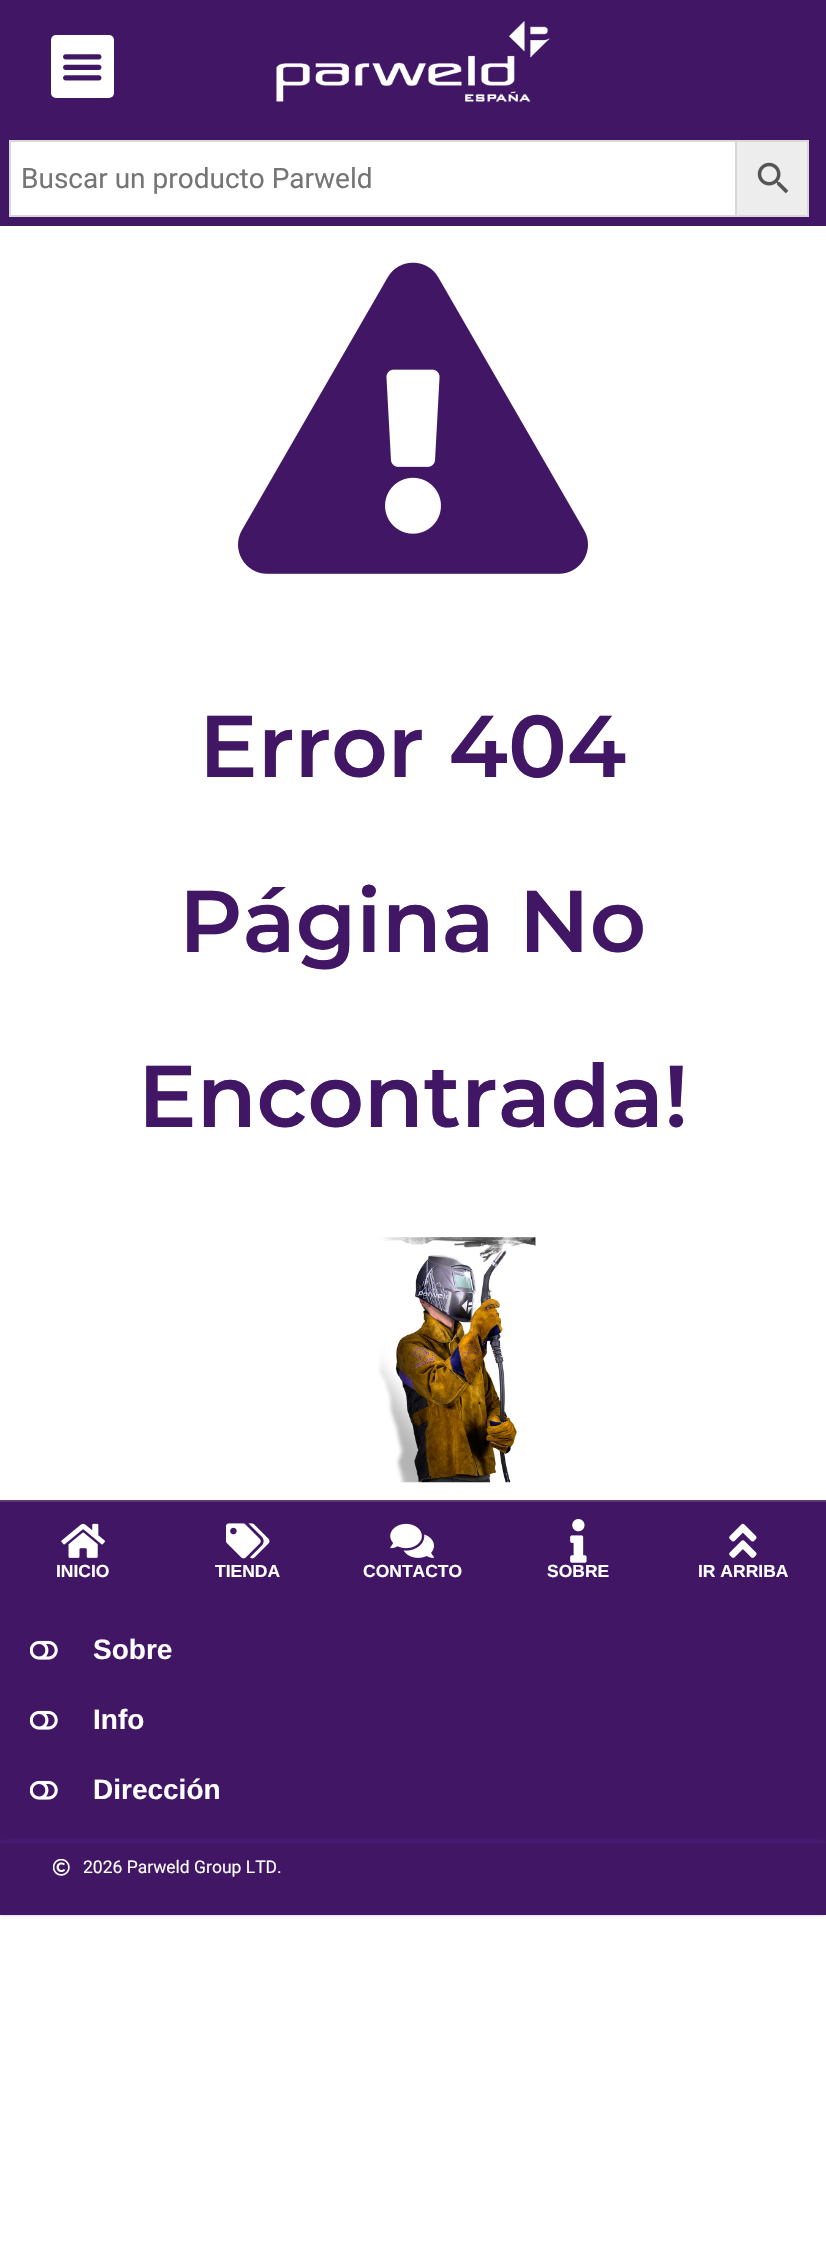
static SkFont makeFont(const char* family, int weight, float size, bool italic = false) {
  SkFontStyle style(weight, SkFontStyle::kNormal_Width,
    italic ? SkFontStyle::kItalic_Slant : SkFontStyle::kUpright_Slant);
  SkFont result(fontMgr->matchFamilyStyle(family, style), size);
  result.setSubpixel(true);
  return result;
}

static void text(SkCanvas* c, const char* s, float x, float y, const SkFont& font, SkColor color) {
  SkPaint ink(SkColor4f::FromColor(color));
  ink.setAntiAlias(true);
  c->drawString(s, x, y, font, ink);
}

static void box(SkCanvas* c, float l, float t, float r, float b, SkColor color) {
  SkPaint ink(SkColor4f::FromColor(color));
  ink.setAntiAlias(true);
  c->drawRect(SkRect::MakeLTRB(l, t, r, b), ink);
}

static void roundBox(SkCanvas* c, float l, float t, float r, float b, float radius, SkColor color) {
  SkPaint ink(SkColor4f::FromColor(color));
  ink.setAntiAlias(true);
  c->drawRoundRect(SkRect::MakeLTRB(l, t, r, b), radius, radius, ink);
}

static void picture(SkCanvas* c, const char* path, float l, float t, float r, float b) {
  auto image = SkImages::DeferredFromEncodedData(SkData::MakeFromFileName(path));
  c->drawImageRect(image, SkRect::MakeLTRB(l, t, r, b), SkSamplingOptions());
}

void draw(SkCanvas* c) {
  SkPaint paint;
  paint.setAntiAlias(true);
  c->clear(0xffffffff);
  box(c, 0, 0, 826, 226, 0xff401665);
  roundBox(c, 51, 35, 114, 98, 5, 0xffffffff);
  picture(c, "img_01.png", 63, 54, 102, 81);
  picture(c, "img_02.png", 276, 21, 550, 102);
  paint.setColor(0xffededed);
  c->drawRect(SkRect::MakeLTRB(736, 141, 808, 216), paint);
  paint.setStyle(SkPaint::kStroke_Style);
  paint.setStrokeWidth(2);
  paint.setColor(0xffd8d8d8);
  c->drawRect(SkRect::MakeLTRB(736, 141, 808, 216), paint);
  paint.setStyle(SkPaint::kFill_Style);
  paint.setColor(0xffffffff);
  c->drawRect(SkRect::MakeLTRB(10, 141, 736, 216), paint);
  paint.setStyle(SkPaint::kStroke_Style);
  paint.setColor(0xffd8d8d8);
  c->drawRect(SkRect::MakeLTRB(10, 141, 736, 216), paint);
  SkFont face1 = makeFont("Roboto", 400, 28);
  text(c, "Buscar un producto Parweld", 21, 188, face1, 0xff757575);
  picture(c, "img_03.png", 757, 162, 789, 194);
  picture(c, "img_04.png", 238, 262, 588, 574);
  SkFont face2 = makeFont("Montserrat", 600, 87.5f);
  text(c, "Error 404", 199, 777, face2, 0xff401665);
  text(c, "Página No", 179, 952, face2, 0xff401665);
  text(c, "Encontrada!", 138, 1127, face2, 0xff401665);
  picture(c, "img_05.png", 378, 1237, 536, 1483);
  box(c, 0, 1502, 826, 1843, 0xff401665);
  box(c, 0, 1500, 826, 1502, 0xff5b3b76);
  picture(c, "img_06.png", 61, 1523, 105, 1558);
  SkFont face3 = makeFont("Liberation Sans", 700, 17.5f);
  text(c, "INICIO", 56, 1577, face3, 0xffffffff);
  picture(c, "img_07.png", 226, 1523, 270, 1559);
  text(c, "TIENDA", 215, 1577, face3, 0xffffffff);
  picture(c, "img_08.png", 390, 1523, 434, 1558);
  text(c, "CONTACTO", 363, 1577, face3, 0xffffffff);
  picture(c, "img_09.png", 570, 1519, 587, 1563);
  text(c, "SOBRE", 547, 1577, face3, 0xffffffff);
  picture(c, "img_10.png", 729, 1523, 757, 1558);
  text(c, "IR ARRIBA", 698, 1577, face3, 0xffffffff);
  picture(c, "img_11.png", 30, 1640, 58, 1660);
  SkFont face4 = makeFont("Liberation Sans", 700, 28);
  text(c, "Sobre", 93, 1659, face4, 0xffffffff);
  picture(c, "img_11.png", 30, 1710, 58, 1730);
  text(c, "Info", 93, 1729, face4, 0xffffffff);
  picture(c, "img_11.png", 30, 1780, 58, 1800);
  text(c, "Dirección", 93, 1799, face4, 0xffffffff);
  paint.setStyle(SkPaint::kFill_Style);
  paint.setColor(0xad502083);
  paint.setMaskFilter(SkMaskFilter::MakeBlur(kNormal_SkBlurStyle, 2.5f));
  c->drawRect(SkRect::MakeLTRB(0, 1841, 826, 1913), paint);
  paint.setMaskFilter(nullptr);
  box(c, 0, 1843, 826, 1915, 0xff401665);
  picture(c, "img_12.png", 53, 1859, 70, 1876);
  SkFont face5 = makeFont("Roboto", 400, 17.5f);
  text(c, "2026 Parweld Group LTD.", 83, 1873, face5, 0xffffffff);
}
